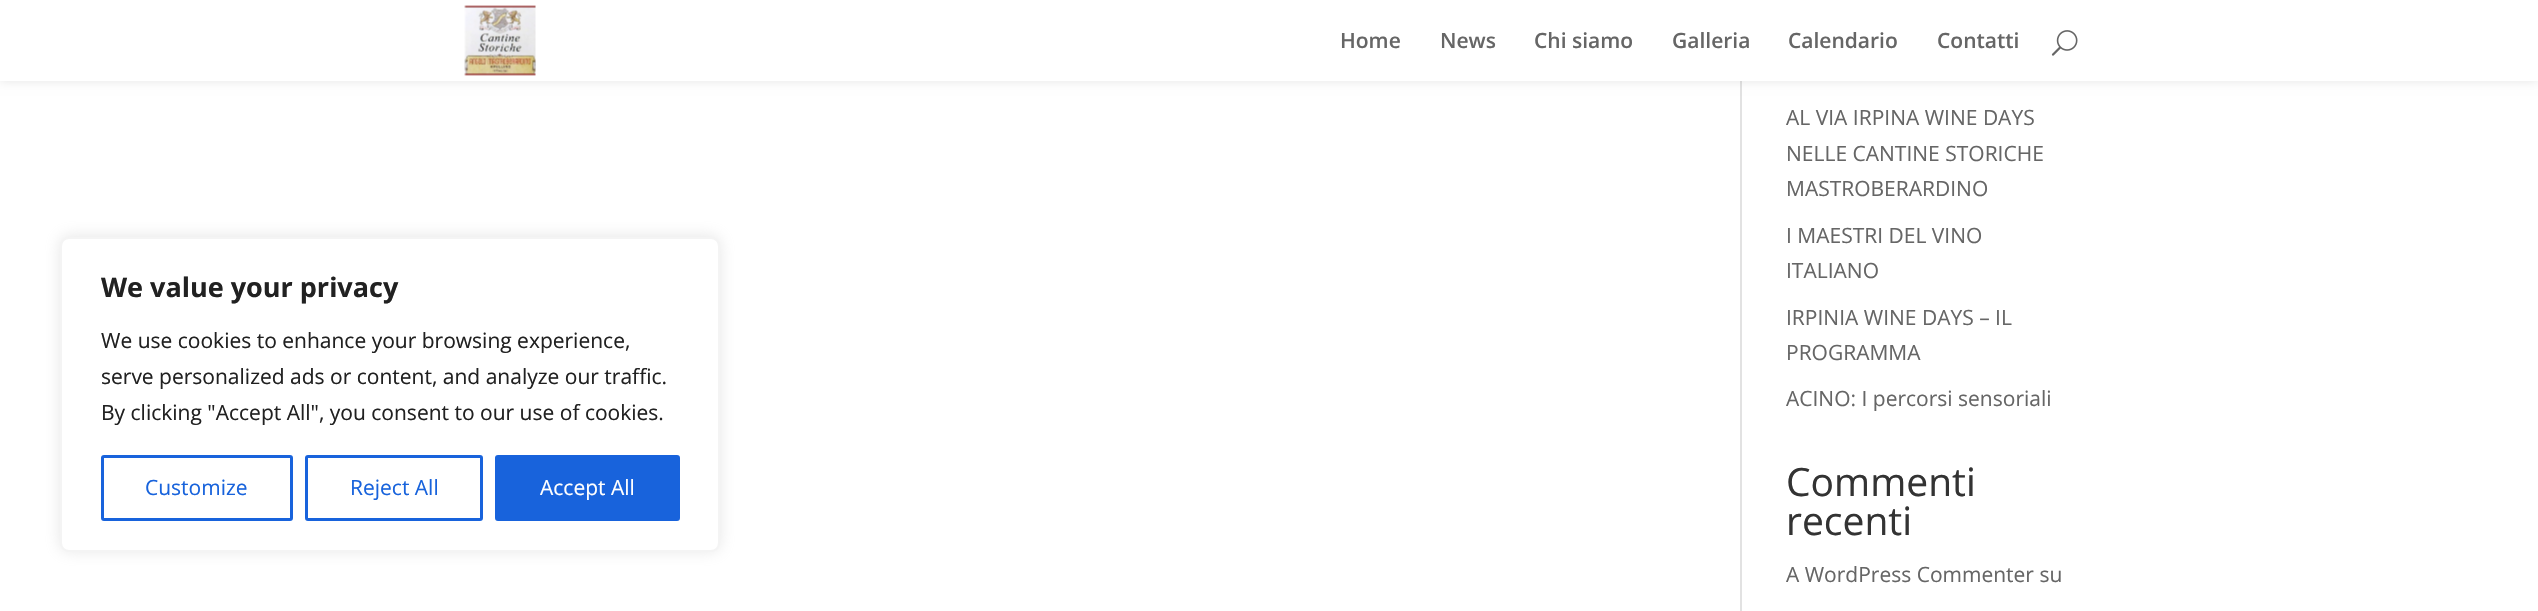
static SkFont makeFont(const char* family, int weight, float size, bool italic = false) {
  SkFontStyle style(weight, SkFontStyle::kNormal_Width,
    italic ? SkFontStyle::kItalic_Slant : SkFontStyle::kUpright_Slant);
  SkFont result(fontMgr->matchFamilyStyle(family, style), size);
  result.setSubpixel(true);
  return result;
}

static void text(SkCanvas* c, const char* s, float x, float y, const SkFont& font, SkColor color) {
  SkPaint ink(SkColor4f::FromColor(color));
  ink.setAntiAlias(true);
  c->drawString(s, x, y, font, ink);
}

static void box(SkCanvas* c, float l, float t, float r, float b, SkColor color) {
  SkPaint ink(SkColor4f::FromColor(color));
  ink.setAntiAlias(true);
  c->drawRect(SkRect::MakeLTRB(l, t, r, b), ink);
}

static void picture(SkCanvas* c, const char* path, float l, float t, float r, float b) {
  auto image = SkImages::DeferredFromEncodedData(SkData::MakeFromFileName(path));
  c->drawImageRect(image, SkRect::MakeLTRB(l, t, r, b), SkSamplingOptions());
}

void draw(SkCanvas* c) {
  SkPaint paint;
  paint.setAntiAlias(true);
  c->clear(0xffffffff);
  paint.setColor(0x4dacabab);
  paint.setMaskFilter(SkMaskFilter::MakeBlur(kNormal_SkBlurStyle, 7.5f));
  c->drawRoundRect(SkRect::MakeLTRB(60, 236, 720, 551), 9, 9, paint);
  paint.setMaskFilter(nullptr);
  paint.setColor(0xffffffff);
  c->drawRoundRect(SkRect::MakeLTRB(61, 238, 719, 551), 8, 8, paint);
  paint.setStyle(SkPaint::kStroke_Style);
  paint.setStrokeWidth(2);
  paint.setColor(0xfff4f4f4);
  c->drawRoundRect(SkRect::MakeLTRB(61, 238, 719, 551), 8, 8, paint);
  SkFont face1 = makeFont("Open Sans", 700, 27);
  text(c, "We value your privacy", 101, 297, face1, 0xff212121);
  SkFont face2 = makeFont("Open Sans", 400, 21);
  text(c, "We use cookies to enhance your browsing experience,", 101, 348, face2, 0xff212121);
  text(c, "serve personalized ads or content, and analyze our traffic.", 101, 384, face2, 0xff212121);
  text(c, "By clicking \"Accept All\", you consent to our use of cookies.", 101, 420, face2, 0xff212121);
  paint.setStrokeWidth(3);
  paint.setColor(0xff1863dc);
  c->drawRoundRect(SkRect::MakeLTRB(102.5f, 456.5f, 291.5f, 519.5f), 1.5f, 1.5f, paint);
  text(c, "Customize", 145, 495, face2, 0xff1863dc);
  c->drawRoundRect(SkRect::MakeLTRB(306.5f, 456.5f, 481.5f, 519.5f), 1.5f, 1.5f, paint);
  text(c, "Reject All", 350, 495, face2, 0xff1863dc);
  paint.setStyle(SkPaint::kFill_Style);
  c->drawRoundRect(SkRect::MakeLTRB(496.5f, 456.5f, 678.5f, 519.5f), 1.5f, 1.5f, paint);
  paint.setStyle(SkPaint::kStroke_Style);
  c->drawRoundRect(SkRect::MakeLTRB(496.5f, 456.5f, 678.5f, 519.5f), 1.5f, 1.5f, paint);
  text(c, "Accept All", 540, 495, face2, 0xffffffff);
  box(c, 1740, 81, 1742, 611, 0xffe2e2e2);
  paint.setStyle(SkPaint::kFill_Style);
  paint.setColor(0x1a000000);
  paint.setMaskFilter(SkMaskFilter::MakeBlur(kNormal_SkBlurStyle, 5));
  c->drawRect(SkRect::MakeLTRB(0, 0, 2538, 81), paint);
  paint.setMaskFilter(nullptr);
  box(c, 0, 0, 2538, 81, 0xffffffff);
  picture(c, "img_01.png", 464, 5, 536, 76);
  SkFont face3 = makeFont("Open Sans", 600, 21);
  text(c, "Home", 1340, 48, face3, 0xff666666);
  text(c, "News", 1440, 48, face3, 0xff666666);
  text(c, "Chi siamo", 1534, 48, face3, 0xff666666);
  text(c, "Galleria", 1672, 48, face3, 0xff666666);
  text(c, "Calendario", 1788, 48, face3, 0xff666666);
  text(c, "Contatti", 1937, 48, face3, 0xff666666);
  picture(c, "img_02.png", 2051, 30, 2078, 56);
  text(c, "AL VIA IRPINA WINE DAYS", 1786, 125, face2, 0xff666666);
  text(c, "NELLE CANTINE STORICHE", 1786, 161, face2, 0xff666666);
  text(c, "MASTROBERARDINO", 1786, 196, face2, 0xff666666);
  text(c, "I MAESTRI DEL VINO", 1786, 243, face2, 0xff666666);
  text(c, "ITALIANO", 1786, 278, face2, 0xff666666);
  text(c, "IRPINIA WINE DAYS – IL", 1786, 325, face2, 0xff666666);
  text(c, "PROGRAMMA", 1786, 360, face2, 0xff666666);
  text(c, "ACINO: I percorsi sensoriali", 1786, 406, face2, 0xff666666);
  SkFont face4 = makeFont("Open Sans", 400, 39);
  text(c, "Commenti", 1786, 496, face4, 0xff333333);
  text(c, "recenti", 1786, 535, face4, 0xff333333);
  text(c, "A WordPress Commenter su", 1786, 582, face2, 0xff666666);
}
